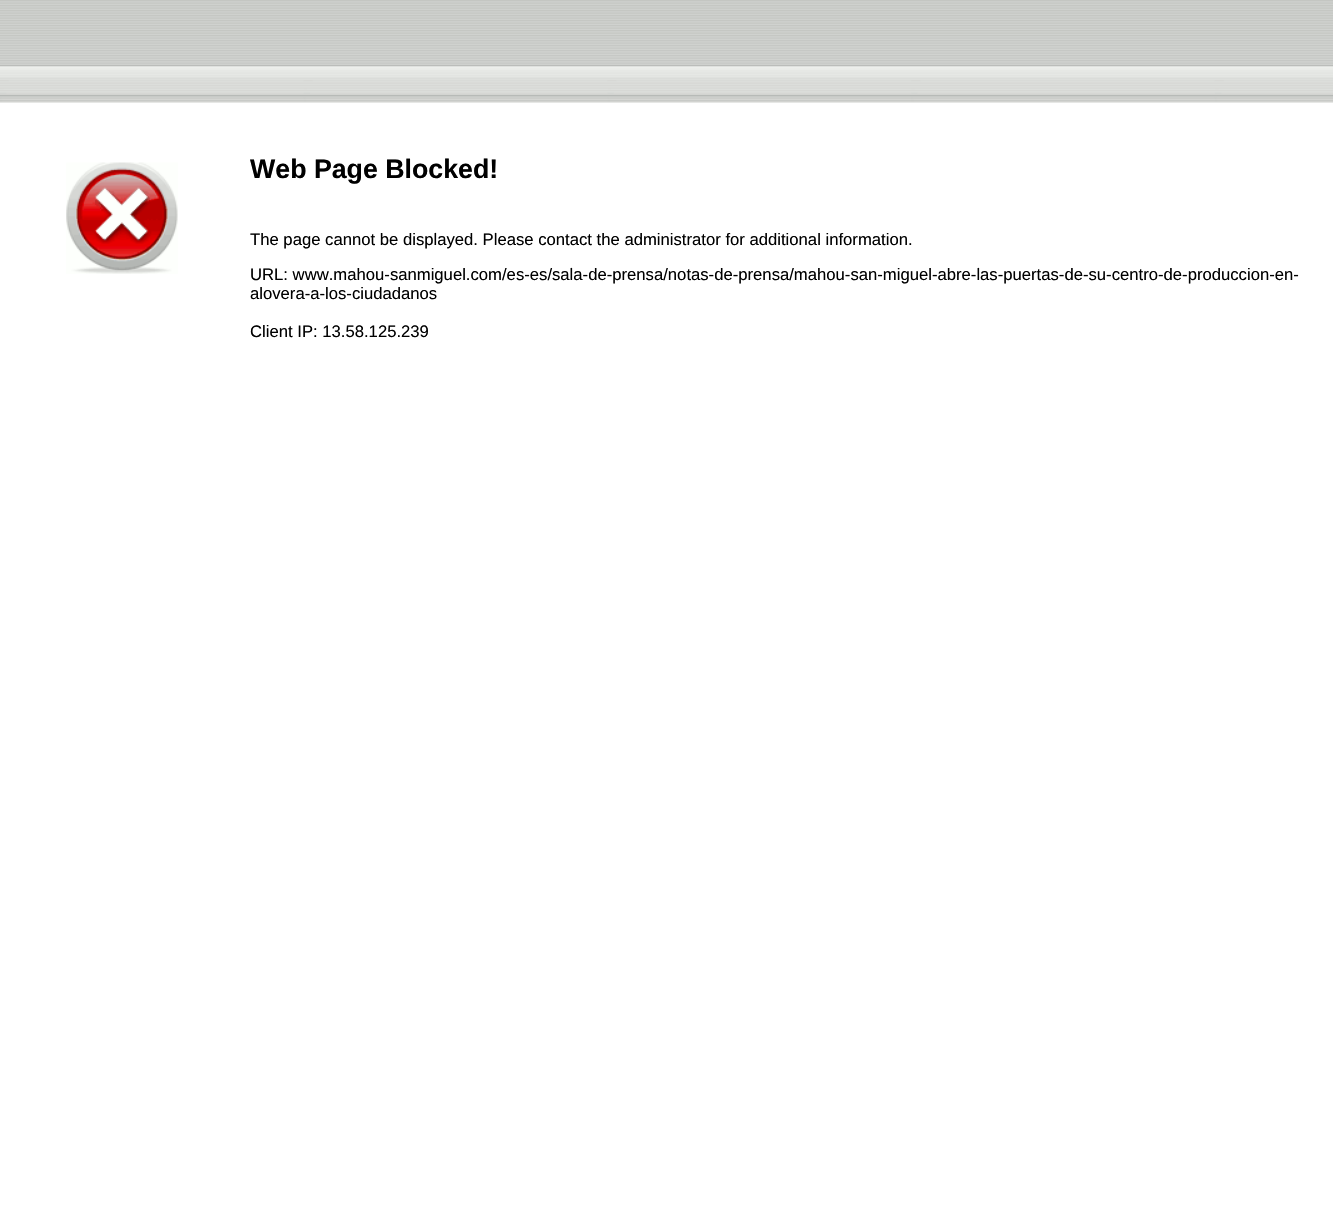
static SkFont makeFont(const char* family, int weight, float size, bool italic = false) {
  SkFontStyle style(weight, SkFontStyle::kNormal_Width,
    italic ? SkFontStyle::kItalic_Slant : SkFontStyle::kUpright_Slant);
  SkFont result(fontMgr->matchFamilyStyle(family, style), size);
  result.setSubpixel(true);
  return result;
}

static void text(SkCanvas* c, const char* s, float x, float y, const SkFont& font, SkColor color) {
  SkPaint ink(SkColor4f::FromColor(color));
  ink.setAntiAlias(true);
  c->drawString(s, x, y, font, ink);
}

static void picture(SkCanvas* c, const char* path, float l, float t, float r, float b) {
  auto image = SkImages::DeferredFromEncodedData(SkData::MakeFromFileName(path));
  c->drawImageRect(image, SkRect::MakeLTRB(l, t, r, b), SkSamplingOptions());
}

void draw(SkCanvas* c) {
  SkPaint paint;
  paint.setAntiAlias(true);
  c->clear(0xffffffff);
  picture(c, "img_01.png", 0, 0, 1333, 103);
  picture(c, "img_02.png", 66, 162, 178, 274);
  SkFont face1 = makeFont("Liberation Sans", 700, 26.75f);
  text(c, "Web Page Blocked!", 250, 178, face1, 0xff000000);
  SkFont face2 = makeFont("Liberation Sans", 400, 16.67f);
  text(c, "The page cannot be displayed. Please contact the administrator for additional information.", 250, 245, face2, 0xff000000);
  text(c, "URL: www.mahou-sanmiguel.com/es-es/sala-de-prensa/notas-de-prensa/mahou-san-miguel-abre-las-puertas-de-su-centro-de-produccion-en-", 250, 280, face2, 0xff000000);
  text(c, "alovera-a-los-ciudadanos", 250, 299, face2, 0xff000000);
  text(c, "Client IP: 13.58.125.239", 250, 337, face2, 0xff000000);
}
